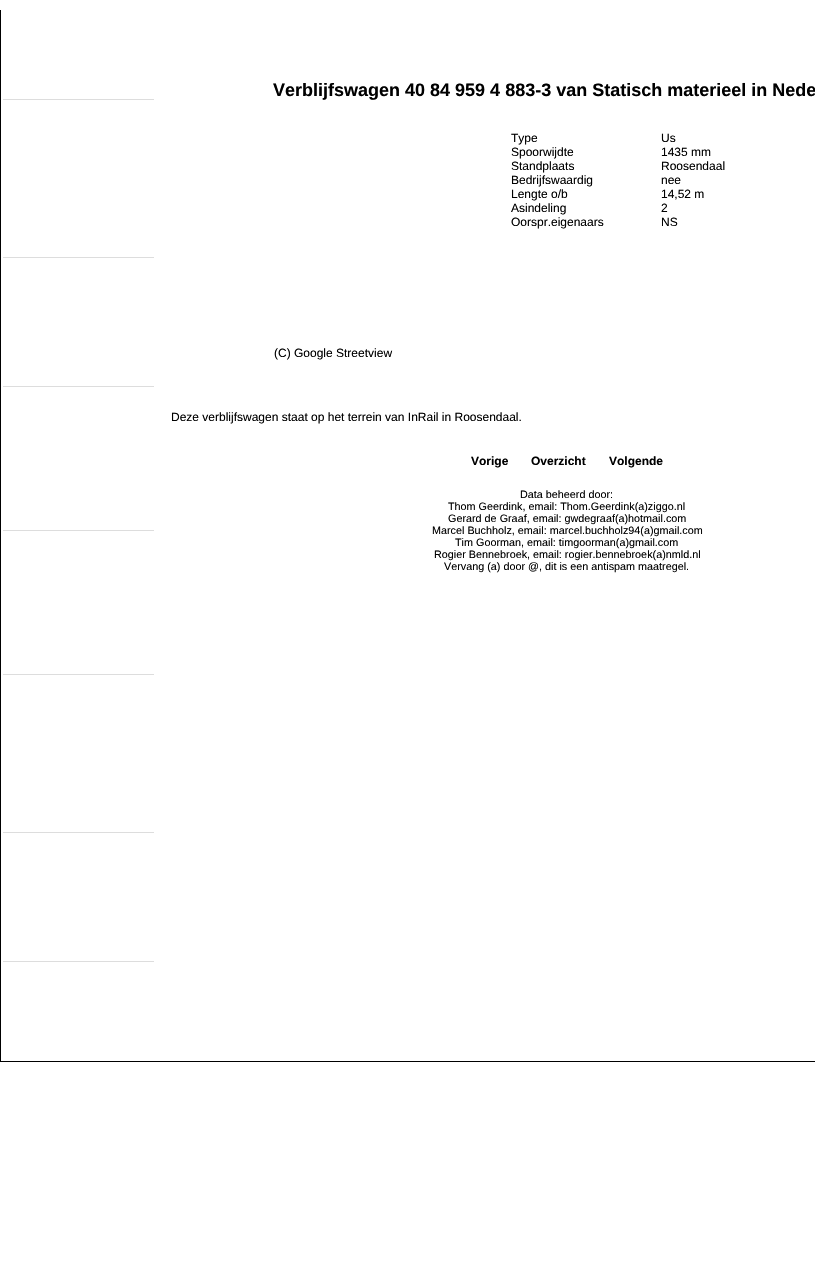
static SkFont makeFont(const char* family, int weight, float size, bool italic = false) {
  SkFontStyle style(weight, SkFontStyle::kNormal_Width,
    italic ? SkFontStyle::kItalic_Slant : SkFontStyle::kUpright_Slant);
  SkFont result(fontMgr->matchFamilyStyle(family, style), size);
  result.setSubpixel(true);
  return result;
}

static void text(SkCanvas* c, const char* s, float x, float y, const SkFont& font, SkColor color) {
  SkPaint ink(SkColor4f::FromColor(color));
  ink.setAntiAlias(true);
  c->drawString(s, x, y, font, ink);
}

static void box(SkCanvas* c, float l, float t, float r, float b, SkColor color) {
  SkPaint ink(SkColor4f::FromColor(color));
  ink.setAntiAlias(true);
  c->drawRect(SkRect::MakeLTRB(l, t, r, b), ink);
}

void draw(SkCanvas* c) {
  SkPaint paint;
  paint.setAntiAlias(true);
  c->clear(0xffffffff);
  box(c, 0, 1061, 815, 1062, 0xff000000);
  box(c, 0, 10, 1, 1062, 0xff000000);
  box(c, 3, 99, 154, 100, 0xffdddddd);
  box(c, 3, 257, 154, 258, 0xffdddddd);
  box(c, 3, 386, 154, 387, 0xffdddddd);
  box(c, 3, 530, 154, 531, 0xffdddddd);
  box(c, 3, 674, 154, 675, 0xffdddddd);
  box(c, 3, 832, 154, 833, 0xffdddddd);
  box(c, 3, 961, 154, 962, 0xffdddddd);
  SkFont face1 = makeFont("Liberation Sans", 700, 18);
  text(c, "Verblijfswagen 40 84 959 4 883-3 van Statisch materieel in Nede", 273, 96, face1, 0xff000000);
  SkFont face2 = makeFont("Liberation Sans", 400, 12);
  text(c, "Type", 511, 142, face2, 0xff000000);
  text(c, "Us", 661, 142, face2, 0xff000000);
  text(c, "Spoorwijdte", 511, 156, face2, 0xff000000);
  text(c, "1435 mm", 661, 156, face2, 0xff000000);
  text(c, "Standplaats", 511, 170, face2, 0xff000000);
  text(c, "Roosendaal", 661, 170, face2, 0xff000000);
  text(c, "Bedrijfswaardig", 511, 184, face2, 0xff000000);
  text(c, "nee", 661, 184, face2, 0xff000000);
  text(c, "Lengte o/b", 511, 198, face2, 0xff000000);
  text(c, "14,52 m", 661, 198, face2, 0xff000000);
  text(c, "Asindeling", 511, 212, face2, 0xff000000);
  text(c, "2", 661, 212, face2, 0xff000000);
  text(c, "Oorspr.eigenaars", 511, 226, face2, 0xff000000);
  text(c, "NS", 661, 226, face2, 0xff000000);
  text(c, "(C) Google Streetview", 274, 357, face2, 0xff000000);
  text(c, "Deze verblijfswagen staat op het terrein van InRail in Roosendaal.", 171, 421, face2, 0xff000000);
  SkFont face3 = makeFont("Liberation Sans", 700, 12);
  text(c, "Vorige", 471, 465, face3, 0xff000000);
  text(c, "Overzicht", 531, 465, face3, 0xff000000);
  text(c, "Volgende", 609, 465, face3, 0xff000000);
  SkFont face4 = makeFont("Liberation Sans", 400, 10.8f);
  text(c, "Data beheerd door:", 520, 498, face4, 0xff000000);
  text(c, "Thom Geerdink, email: Thom.Geerdink(a)ziggo.nl", 448, 510, face4, 0xff000000);
  text(c, "Gerard de Graaf, email: gwdegraaf(a)hotmail.com", 448, 522, face4, 0xff000000);
  text(c, "Marcel Buchholz, email: marcel.buchholz94(a)gmail.com", 432, 534, face4, 0xff000000);
  text(c, "Tim Goorman, email: timgoorman(a)gmail.com", 455, 546, face4, 0xff000000);
  text(c, "Rogier Bennebroek, email: rogier.bennebroek(a)nmld.nl", 434, 558, face4, 0xff000000);
  text(c, "Vervang (a) door @, dit is een antispam maatregel.", 444, 570, face4, 0xff000000);
}
